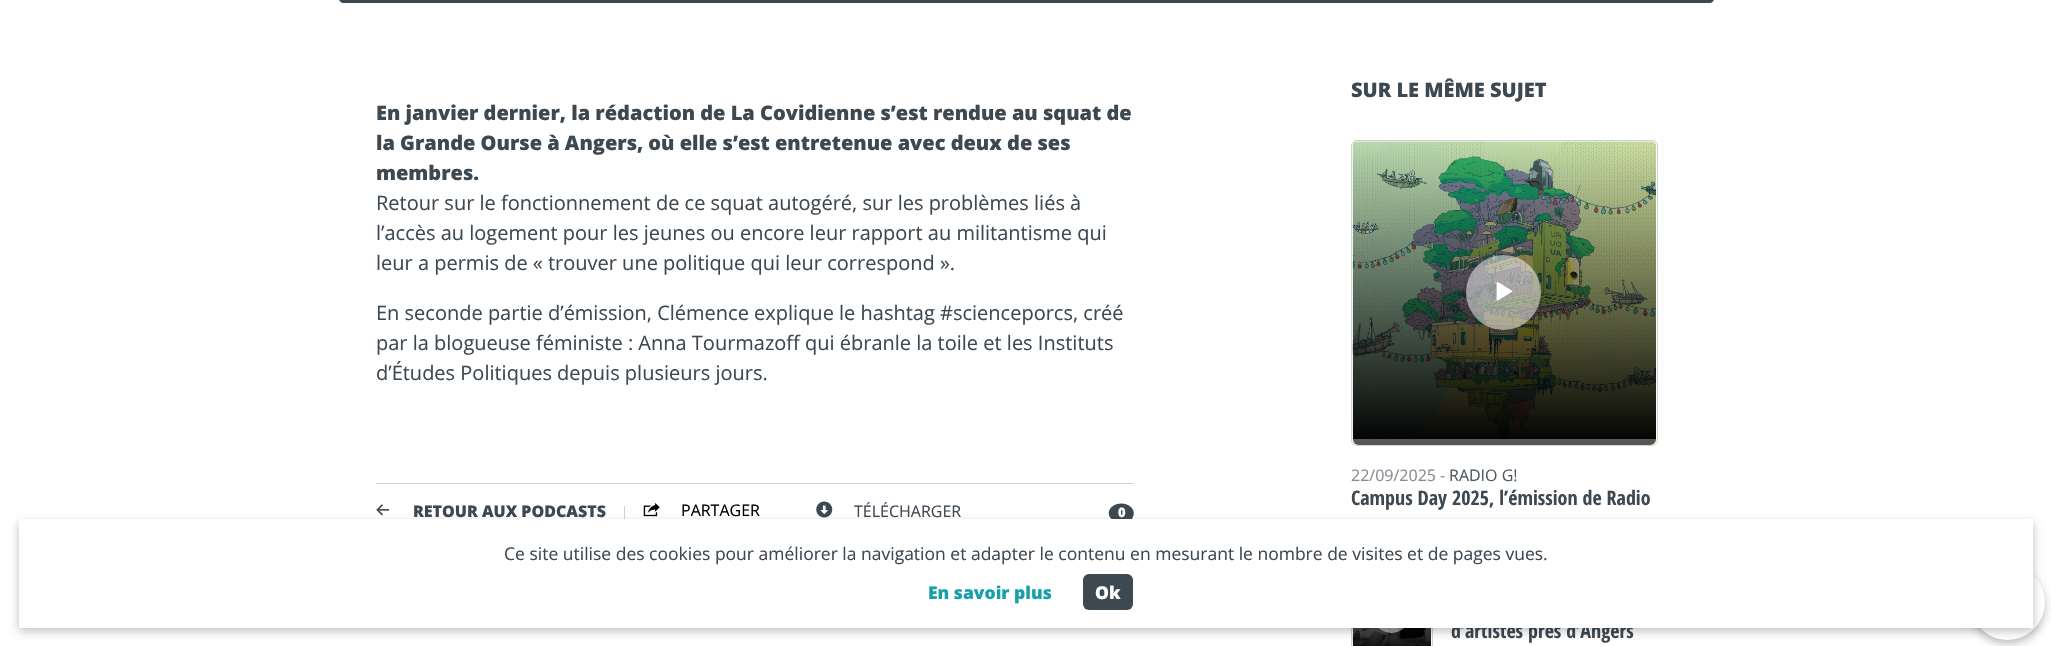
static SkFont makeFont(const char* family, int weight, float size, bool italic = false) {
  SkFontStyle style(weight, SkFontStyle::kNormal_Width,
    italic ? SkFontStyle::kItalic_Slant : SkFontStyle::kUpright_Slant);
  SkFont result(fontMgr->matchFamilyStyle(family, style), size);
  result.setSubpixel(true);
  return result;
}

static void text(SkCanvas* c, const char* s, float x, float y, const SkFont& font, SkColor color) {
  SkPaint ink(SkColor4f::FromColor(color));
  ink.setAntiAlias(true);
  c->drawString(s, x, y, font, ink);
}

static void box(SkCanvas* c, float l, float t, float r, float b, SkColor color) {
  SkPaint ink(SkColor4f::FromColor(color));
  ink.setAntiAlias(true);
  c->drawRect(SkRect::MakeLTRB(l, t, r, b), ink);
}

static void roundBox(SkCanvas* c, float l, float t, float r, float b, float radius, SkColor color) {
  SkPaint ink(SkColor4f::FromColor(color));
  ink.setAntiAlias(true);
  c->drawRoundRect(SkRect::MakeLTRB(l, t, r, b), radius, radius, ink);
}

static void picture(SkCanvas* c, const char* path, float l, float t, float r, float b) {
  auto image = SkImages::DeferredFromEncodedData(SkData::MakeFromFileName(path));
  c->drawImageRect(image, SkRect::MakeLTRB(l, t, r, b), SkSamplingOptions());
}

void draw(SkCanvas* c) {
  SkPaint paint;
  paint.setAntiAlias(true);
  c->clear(0xffffffff);
  roundBox(c, 339, -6, 1714, 3, 6, 0xff3e4851);
  SkFont face1 = makeFont("Open Sans", 800, 20);
  text(c, "En janvier dernier, la rédaction de La Covidienne s’est rendue au squat de", 376, 120, face1, 0xff3e4851);
  text(c, "la Grande Ourse à Angers, où elle s’est entretenue avec deux de ses", 376, 150, face1, 0xff3e4851);
  text(c, "membres.", 376, 180, face1, 0xff3e4851);
  SkFont face2 = makeFont("Open Sans", 400, 20);
  text(c, "Retour sur le fonctionnement de ce squat autogéré, sur les problèmes liés à", 376, 210, face2, 0xff3e4851);
  text(c, "l’accès au logement pour les jeunes ou encore leur rapport au militantisme qui", 376, 240, face2, 0xff3e4851);
  text(c, "leur a permis de « trouver une politique qui leur correspond ».", 376, 270, face2, 0xff3e4851);
  text(c, "En seconde partie d’émission, Clémence explique le hashtag #scienceporcs, créé", 376, 320, face2, 0xff3e4851);
  text(c, "par la blogueuse féministe : Anna Tourmazoff qui ébranle la toile et les Instituts", 376, 350, face2, 0xff3e4851);
  text(c, "d’Études Politiques depuis plusieurs jours.", 376, 380, face2, 0xff3e4851);
  box(c, 376, 483, 1134, 484, 0xffcfd1d3);
  picture(c, "img_01.png", 376, 504, 390, 516);
  SkFont face3 = makeFont("Open Sans", 800, 16);
  text(c, "RETOUR AUX PODCASTS", 413, 517, face3, 0xff3e4851);
  box(c, 624, 506, 625, 519, 0xffcfd1d3);
  picture(c, "img_02.png", 643, 503, 660, 517);
  SkFont face4 = makeFont("Open Sans", 400, 16);
  text(c, "PARTAGER", 681, 516, face4, 0xff000000);
  picture(c, "img_03.png", 816, 501, 833, 518);
  text(c, "TÉLÉCHARGER", 854, 517, face4, 0xff3e4851);
  picture(c, "img_04.png", 1108, 503, 1134, 519);
  SkFont face5 = makeFont("Open Sans", 800, 13);
  text(c, "0", 1118, 517, face5, 0xffffffff);
  text(c, "SUR LE MÊME SUJET", 1351, 97, face1, 0xff3e4851);
  paint.setStyle(SkPaint::kStroke_Style);
  paint.setStrokeWidth(1);
  paint.setColor(0xffcfd1d3);
  c->drawRoundRect(SkRect::MakeLTRB(1351.5f, 140.5f, 1657.5f, 445.5f), 5.5f, 5.5f, paint);
  picture(c, "img_05.png", 1352, 141, 1657, 445);
  c->save();
  c->clipPath(SkPathBuilder().moveTo(1358, 141).lineTo(1651, 141).cubicTo(1654, 141, 1656, 143, 1656, 146).lineTo(1656, 440).cubicTo(1656, 443, 1654, 445, 1651, 445).lineTo(1358, 445).cubicTo(1355, 445, 1353, 443, 1353, 440).lineTo(1353, 146).cubicTo(1353, 143, 1355, 141, 1358, 141).close().detach(), true);
  paint.setStyle(SkPaint::kFill_Style);
  {
    const SkColor colors[] = {0x00000000, 0xff000000};
    const float stops[] = {0, 1};
    const SkPoint ends[] = {{1504, 141}, {1504, 445}};
    paint.setShader(SkGradientShader::MakeLinear(ends, colors, stops, 2, SkTileMode::kClamp));
    paint.setAlpha(255);
  }
  c->drawRoundRect(SkRect::MakeLTRB(1353, 141, 1656, 445), 6, 6, paint);
  c->restore();
  paint.setShader(nullptr);
  paint.setColor(0x80ffffff);
  c->drawCircle(1503.5f, 292.5f, 37.5f, paint);
  picture(c, "img_06.png", 1496, 281, 1513, 301);
  paint.setColor(0x54ffffff);
  c->drawPath(SkPathBuilder().moveTo(1353, 439).lineTo(1656, 439).lineTo(1656, 440).cubicTo(1656, 443, 1654, 445, 1651, 445).lineTo(1358, 445).cubicTo(1355, 445, 1353, 443, 1353, 440).close().detach(), paint);
  text(c, "22/09/2025 -", 1351, 481, face4, 0xff868c92);
  text(c, "RADIO G!", 1449, 481, face4, 0xff505961);
  SkFont face6 = makeFont("Open Sans Condensed", 700, 20);
  text(c, "Campus Day 2025, l’émission de Radio", 1351, 505, face6, 0xff3e4851);
  paint.setStyle(SkPaint::kStroke_Style);
  paint.setColor(0xffcfd1d3);
  c->drawRect(SkRect::MakeLTRB(1351.5f, 574.5f, 1432.5f, 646.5f), paint);
  picture(c, "img_07.png", 1352, 628, 1432, 646);
  paint.setStyle(SkPaint::kFill_Style);
  {
    const SkColor colors[] = {0x00000000, 0xff000000};
    const float stops[] = {0, 1};
    const SkPoint ends[] = {{1392, 575}, {1392, 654}};
    paint.setShader(SkGradientShader::MakeLinear(ends, colors, stops, 2, SkTileMode::kClamp));
    paint.setAlpha(255);
  }
  c->drawRect(SkRect::MakeLTRB(1353, 628, 1431, 646), paint);
  roundBox(c, 1373, 595, 1410, 633, 18.5f, 0x80ffffff);
  text(c, "d’artistes près d’Angers", 1451, 638, face6, 0xff3e4851);
  paint.setShader(nullptr);
  paint.setColor(0x40000000);
  paint.setMaskFilter(SkMaskFilter::MakeBlur(kNormal_SkBlurStyle, 4.5f));
  c->drawRoundRect(SkRect::MakeLTRB(1970, 569, 2045, 644), 37.5f, 37.5f, paint);
  paint.setMaskFilter(nullptr);
  paint.setColor(0xffffffff);
  c->drawCircle(2007.5f, 602.5f, 37.5f, paint);
  paint.setColor(0x40000000);
  paint.setMaskFilter(SkMaskFilter::MakeBlur(kNormal_SkBlurStyle, 4.5f));
  c->drawRect(SkRect::MakeLTRB(19, 523, 2033, 631), paint);
  paint.setMaskFilter(nullptr);
  box(c, 19, 519, 2033, 628, 0xffffffff);
  SkFont face7 = makeFont("Open Sans", 400, 17.5f);
  text(c, "Ce site utilise des cookies pour améliorer la navigation et adapter le contenu en mesurant le nombre de visites et de pages vues.", 504, 560, face7, 0xff3e4851);
  SkFont face8 = makeFont("Open Sans", 800, 17.5f);
  text(c, "En savoir plus", 928, 599, face8, 0xff179fac);
  roundBox(c, 1083, 574, 1133, 610, 6, 0xff3e4851);
  text(c, "Ok", 1095, 599, face8, 0xffffffff);
}
